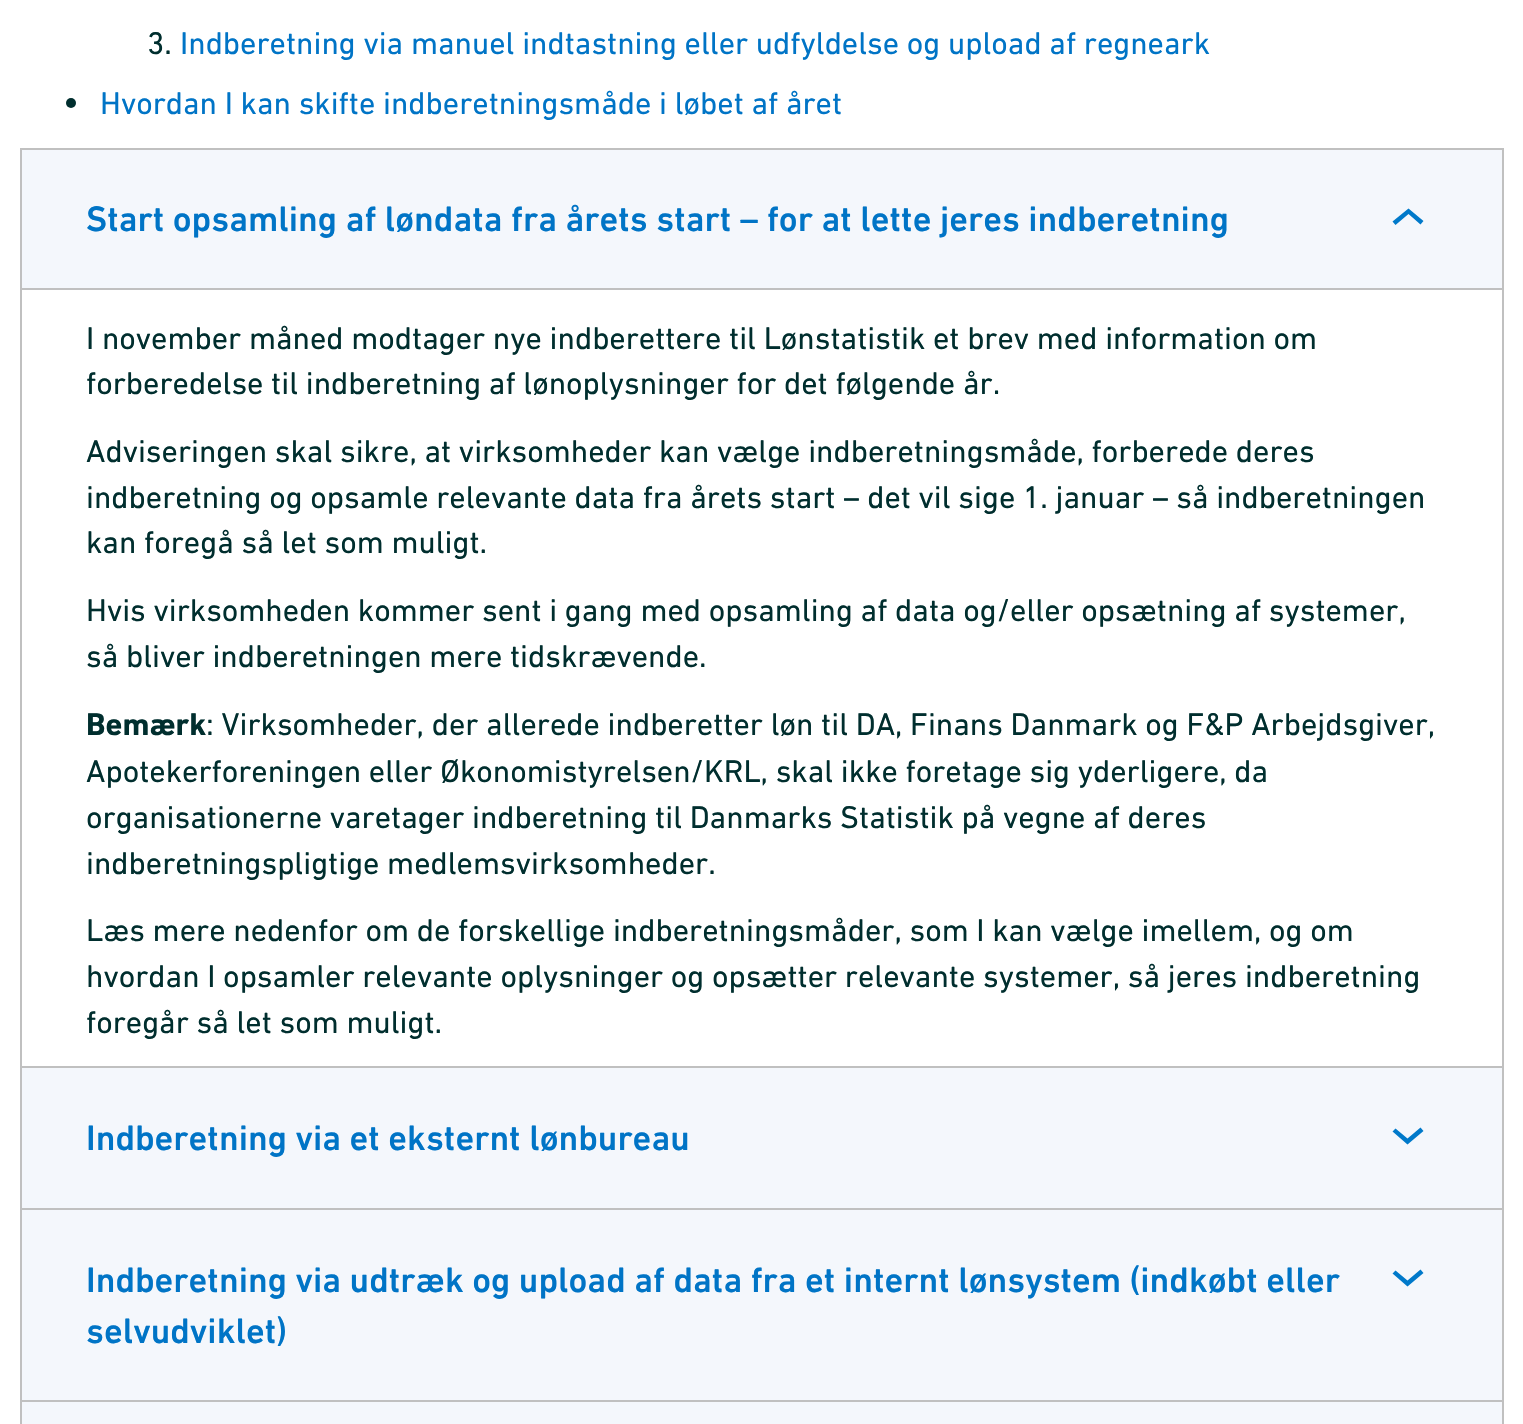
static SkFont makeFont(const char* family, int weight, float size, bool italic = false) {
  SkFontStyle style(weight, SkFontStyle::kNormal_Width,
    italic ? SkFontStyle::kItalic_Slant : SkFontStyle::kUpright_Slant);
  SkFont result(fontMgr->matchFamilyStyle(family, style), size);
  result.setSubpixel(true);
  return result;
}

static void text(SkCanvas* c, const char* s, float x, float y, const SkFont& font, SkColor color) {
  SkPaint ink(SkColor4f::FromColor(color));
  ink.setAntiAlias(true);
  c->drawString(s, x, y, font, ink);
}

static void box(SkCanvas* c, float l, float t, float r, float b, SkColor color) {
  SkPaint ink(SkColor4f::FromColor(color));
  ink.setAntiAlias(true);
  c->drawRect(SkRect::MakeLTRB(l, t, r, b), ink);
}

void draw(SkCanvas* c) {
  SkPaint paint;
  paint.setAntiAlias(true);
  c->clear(0xffffffff);
  SkFont face1 = makeFont("DIN Next", 400, 32);
  text(c, "3.", 147, 54, face1, 0xff002e2e);
  text(c, "Indberetning via manuel indtastning eller udfyldelse og upload af regneark", 180, 54, face1, 0xff0074c6);
  paint.setColor(0xff002e2e);
  c->drawCircle(71, 103, 5, paint);
  text(c, "Hvordan I kan skifte indberetningsmåde i løbet af året", 100, 114, face1, 0xff0074c6);
  paint.setStyle(SkPaint::kStroke_Style);
  paint.setStrokeWidth(2);
  paint.setColor(0xffc0c0c0);
  c->drawRect(SkRect::MakeLTRB(21, 149, 1503, 1067), paint);
  box(c, 22, 150, 1502, 288, 0xfff4f7fc);
  SkFont face2 = makeFont("DIN Next", 500, 36);
  text(c, "Start opsamling af løndata fra årets start – for at lette jeres indberetning", 86, 231, face2, 0xff0074c6);
  paint.setStyle(SkPaint::kFill_Style);
  paint.setColor(0xff0079ca);
  c->drawPath(SkPathBuilder().moveTo(1408.5f, 208.5f).lineTo(1423.5f, 221).lineTo(1420.5f, 224.5f).lineTo(1408.5f, 214).lineTo(1395.5f, 225).lineTo(1392.5f, 221.5f).close().detach(), paint);
  box(c, 22, 288, 1502, 290, 0xffc0c0c0);
  text(c, "I november måned modtager nye indberettere til Lønstatistik et brev med information om", 86, 349, face1, 0xff002e2e);
  text(c, "forberedelse til indberetning af lønoplysninger for det følgende år.", 86, 394, face1, 0xff002e2e);
  text(c, "Adviseringen skal sikre, at virksomheder kan vælge indberetningsmåde, forberede deres", 86, 462, face1, 0xff002e2e);
  text(c, "indberetning og opsamle relevante data fra årets start – det vil sige 1. januar – så indberetningen", 86, 508, face1, 0xff002e2e);
  text(c, "kan foregå så let som muligt.", 86, 553, face1, 0xff002e2e);
  text(c, "Hvis virksomheden kommer sent i gang med opsamling af data og/eller opsætning af systemer,", 86, 621, face1, 0xff002e2e);
  text(c, "så bliver indberetningen mere tidskrævende.", 86, 667, face1, 0xff002e2e);
  SkFont face3 = makeFont("DIN Next", 700, 32);
  text(c, "Bemærk", 86, 735, face3, 0xff002e2e);
  text(c, ": Virksomheder, der allerede indberetter løn til DA, Finans Danmark og F&P Arbejdsgiver,", 206, 735, face1, 0xff002e2e);
  text(c, "Apotekerforeningen eller Økonomistyrelsen/KRL, skal ikke foretage sig yderligere, da", 86, 782, face1, 0xff002e2e);
  text(c, "organisationerne varetager indberetning til Danmarks Statistik på vegne af deres", 86, 828, face1, 0xff002e2e);
  text(c, "indberetningspligtige medlemsvirksomheder.", 86, 874, face1, 0xff002e2e);
  text(c, "Læs mere nedenfor om de forskellige indberetningsmåder, som I kan vælge imellem, og om", 86, 941, face1, 0xff002e2e);
  text(c, "hvordan I opsamler relevante oplysninger og opsætter relevante systemer, så jeres indberetning", 86, 987, face1, 0xff002e2e);
  text(c, "foregår så let som muligt.", 86, 1033, face1, 0xff002e2e);
  box(c, 1502, 1068, 1504, 1424, 0xffc0c0c0);
  box(c, 20, 1068, 22, 1424, 0xffc0c0c0);
  box(c, 22, 1068, 1502, 1208, 0xfff4f7fc);
  box(c, 22, 1208, 1502, 1210, 0xffc0c0c0);
  text(c, "Indberetning via et eksternt lønbureau", 86, 1150, face2, 0xff0074c6);
  c->drawPath(SkPathBuilder().moveTo(1407.5f, 1144.5f).lineTo(1392.5f, 1131.5f).lineTo(1395.5f, 1128.5f).lineTo(1407.5f, 1138.5f).lineTo(1420.5f, 1127.5f).lineTo(1423.5f, 1131).close().detach(), paint);
  box(c, 22, 1210, 1502, 1400, 0xfff4f7fc);
  box(c, 22, 1400, 1502, 1402, 0xffc0c0c0);
  text(c, "Indberetning via udtræk og upload af data fra et internt lønsystem (indkøbt eller", 86, 1292, face2, 0xff0074c6);
  c->drawPath(SkPathBuilder().moveTo(1407.5f, 1286.5f).lineTo(1392.5f, 1273.5f).lineTo(1395.5f, 1270.5f).lineTo(1407.5f, 1280.5f).lineTo(1420.5f, 1269.5f).lineTo(1423.5f, 1273).close().detach(), paint);
  text(c, "selvudviklet)", 86, 1343, face2, 0xff0074c6);
  box(c, 22, 1402, 1502, 1424, 0xfff4f7fc);
}
